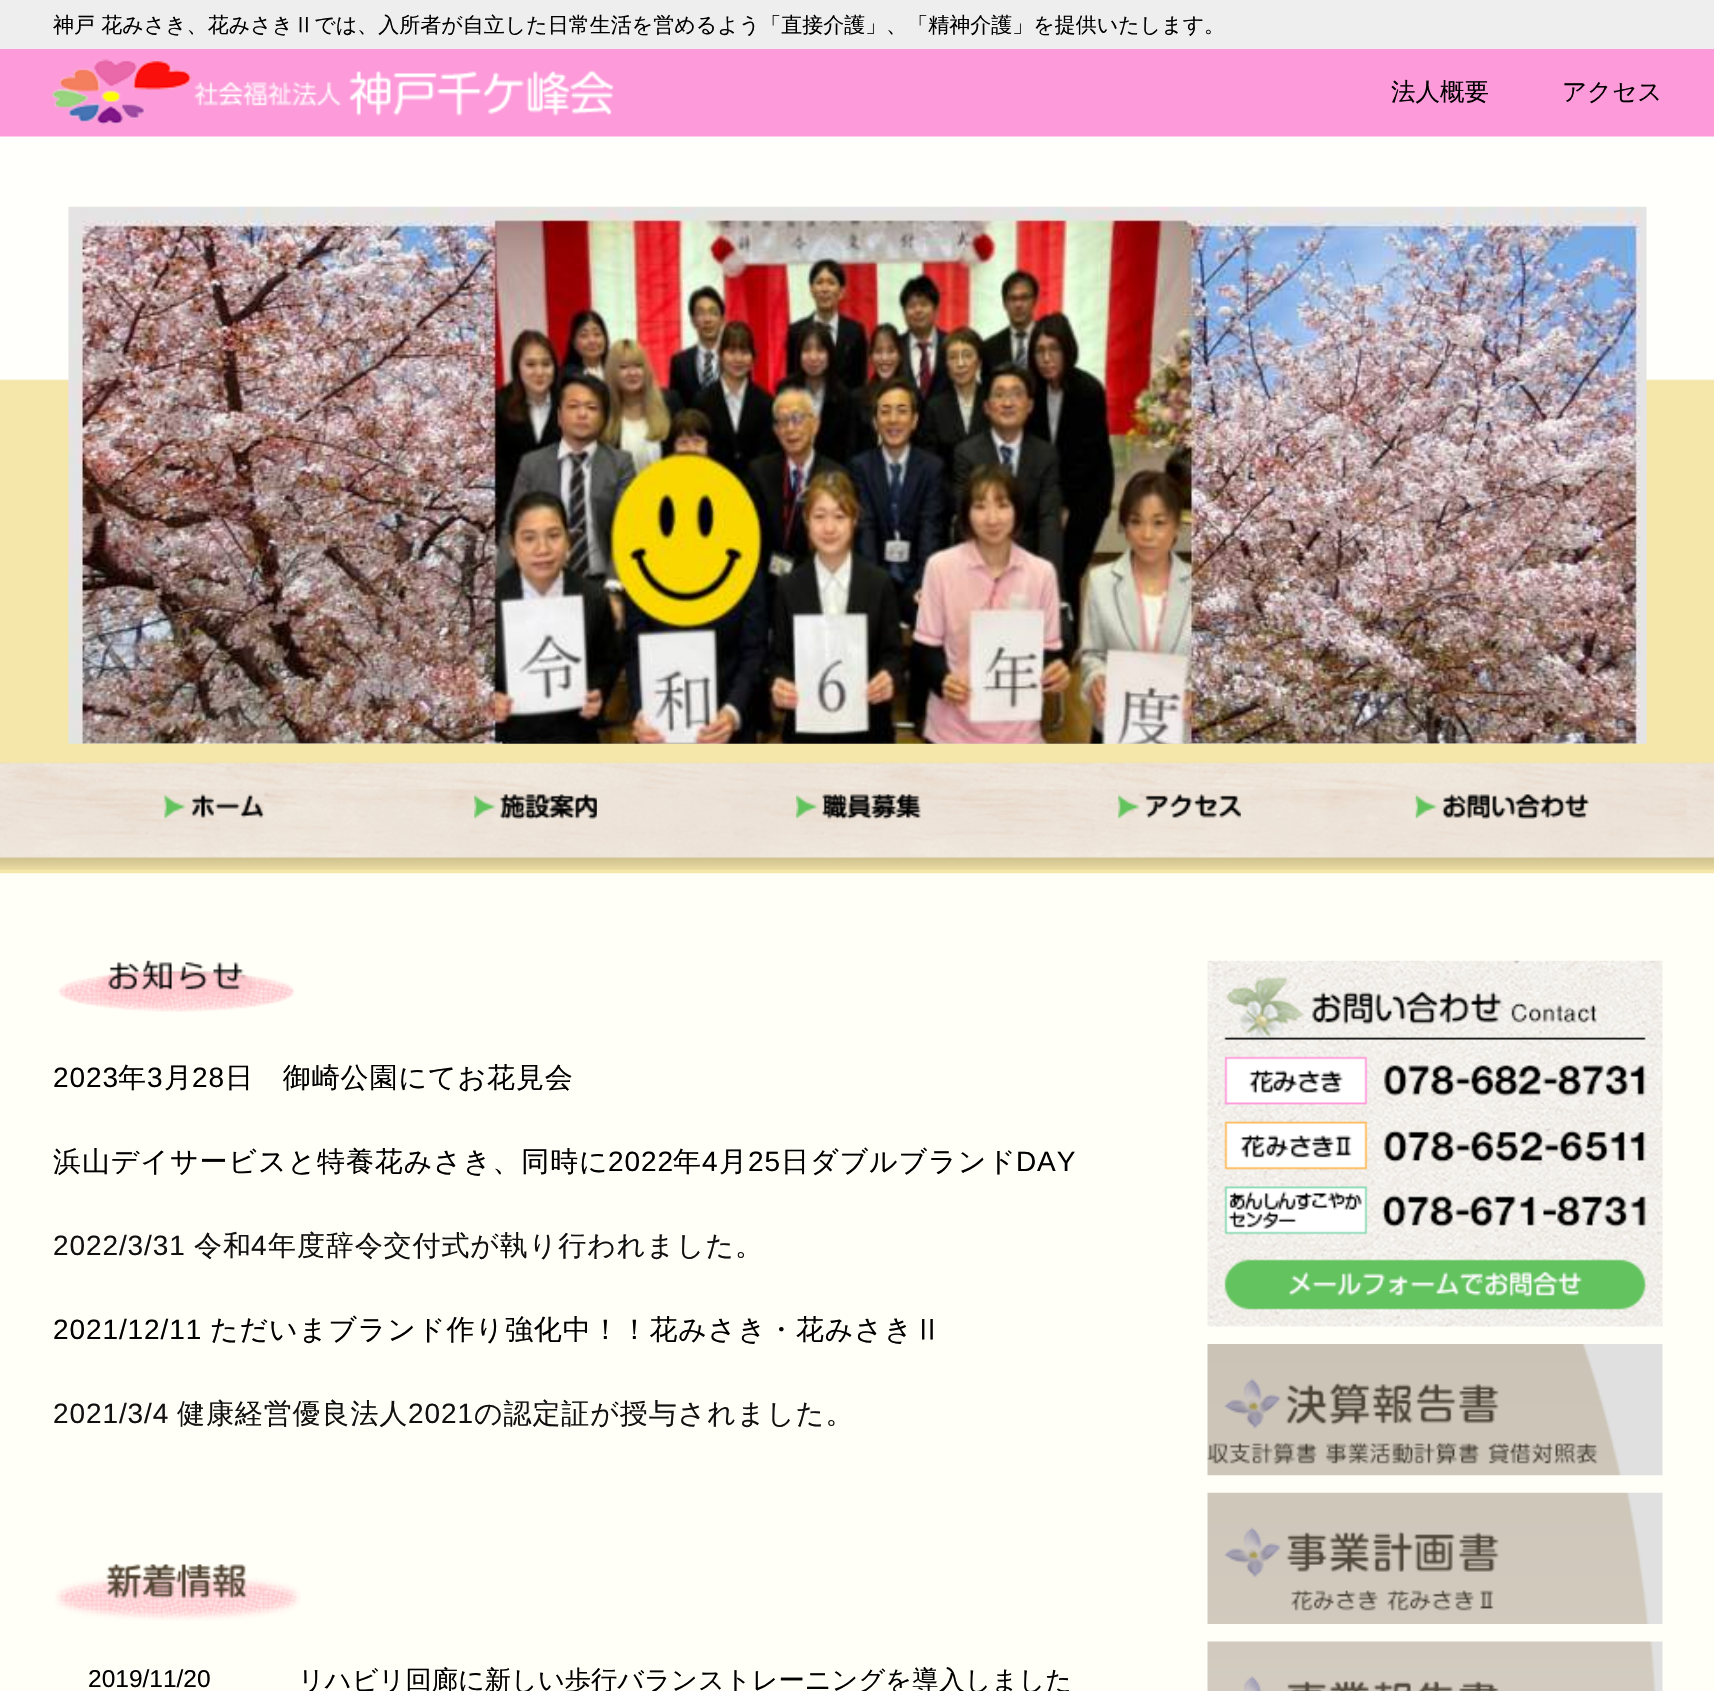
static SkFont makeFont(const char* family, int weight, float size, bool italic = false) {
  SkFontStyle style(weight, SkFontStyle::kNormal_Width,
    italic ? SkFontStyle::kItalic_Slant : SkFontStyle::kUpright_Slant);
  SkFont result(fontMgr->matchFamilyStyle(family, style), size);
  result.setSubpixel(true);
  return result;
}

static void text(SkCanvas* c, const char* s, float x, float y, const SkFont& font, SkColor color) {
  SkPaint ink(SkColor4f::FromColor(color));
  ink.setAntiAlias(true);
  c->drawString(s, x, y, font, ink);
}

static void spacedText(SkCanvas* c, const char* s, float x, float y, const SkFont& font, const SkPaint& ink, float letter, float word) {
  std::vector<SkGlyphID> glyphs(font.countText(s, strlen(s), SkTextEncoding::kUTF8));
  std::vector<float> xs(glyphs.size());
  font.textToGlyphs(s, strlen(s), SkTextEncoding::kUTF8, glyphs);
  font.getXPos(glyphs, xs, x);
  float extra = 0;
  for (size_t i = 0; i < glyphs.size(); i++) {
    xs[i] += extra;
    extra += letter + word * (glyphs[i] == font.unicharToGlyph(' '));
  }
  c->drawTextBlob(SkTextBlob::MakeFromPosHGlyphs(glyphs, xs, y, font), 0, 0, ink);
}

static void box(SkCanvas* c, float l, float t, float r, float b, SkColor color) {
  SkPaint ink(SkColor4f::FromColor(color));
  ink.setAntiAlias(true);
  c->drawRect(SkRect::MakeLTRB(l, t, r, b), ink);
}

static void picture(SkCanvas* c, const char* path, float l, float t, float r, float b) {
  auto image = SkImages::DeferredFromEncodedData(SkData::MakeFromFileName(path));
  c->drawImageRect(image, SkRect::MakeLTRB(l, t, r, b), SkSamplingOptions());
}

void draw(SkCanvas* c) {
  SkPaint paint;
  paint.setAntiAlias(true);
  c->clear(0xfffffff7);
  box(c, 0, 0, 1714, 49, 0xffeeeeee);
  SkFont face1 = makeFont("WenQuanYi Zen Hei", 500, 21);
  text(c, "神戸 花みさき、花みさきⅡでは、入所者が自立した日常生活を営めるよう「直接介護」、「精神介護」を提供いたします。", 53, 32, face1, 0xff000000);
  picture(c, "img_01.png", 0, 49, 1714, 874);
  picture(c, "img_02.png", 52, 59, 614, 125);
  SkFont face2 = makeFont("WenQuanYi Zen Hei", 500, 24.5f);
  text(c, "法人概要", 1391, 100, face2, 0xff000000);
  text(c, "アクセス", 1562, 100, face2, 0xff000000);
  picture(c, "img_03.png", 68, 206, 1647, 744);
  picture(c, "img_04.png", 0, 762, 1714, 870);
  picture(c, "img_05.png", 164, 794, 265, 819);
  picture(c, "img_06.png", 474, 794, 597, 819);
  picture(c, "img_07.png", 796, 794, 921, 819);
  picture(c, "img_08.png", 1118, 794, 1241, 819);
  picture(c, "img_09.png", 1415, 794, 1589, 819);
  picture(c, "img_10.png", 57, 960, 295, 1012);
  SkFont face3 = makeFont("Liberation Sans", 400, 28);
  paint.setColor(0xff000000);
  spacedText(c, "2023", 53, 1087, face3, paint, 0.9f, 0);
  SkFont face4 = makeFont("WenQuanYi Zen Hei", 500, 28);
  spacedText(c, "年", 118, 1087, face4, paint, 0.9f, 0);
  spacedText(c, "3", 147, 1087, face3, paint, 0.9f, 0);
  spacedText(c, "月", 164, 1087, face4, paint, 0.9f, 0);
  spacedText(c, "28", 192, 1087, face3, paint, 0.9f, 0);
  spacedText(c, "日　御崎公園にてお花見会", 225, 1087, face4, paint, 0.9f, 0);
  spacedText(c, "浜山デイサービスと特養花みさき、同時に", 53, 1171, face4, paint, 0.9f, 0);
  spacedText(c, "2022", 608, 1171, face3, paint, 0.9f, 0);
  spacedText(c, "年", 673, 1171, face4, paint, 0.9f, 0);
  spacedText(c, "4", 702, 1171, face3, paint, 0.9f, 0);
  spacedText(c, "月", 719, 1171, face4, paint, 0.9f, 0);
  spacedText(c, "25", 748, 1171, face3, paint, 0.9f, 0);
  spacedText(c, "日ダブルブランド", 781, 1171, face4, paint, 0.9f, 0);
  spacedText(c, "DAY", 1016, 1171, face3, paint, 0.9f, 0);
  paint.setColor(0xff111111);
  spacedText(c, "2022/3/31", 53, 1255, face3, paint, 0.9f, 0);
  spacedText(c, "令和", 194, 1255, face4, paint, 0.9f, 0);
  spacedText(c, "4", 251, 1255, face3, paint, 0.9f, 0);
  spacedText(c, "年度辞令交付式が執り行われました。", 268, 1255, face4, paint, 0.9f, 0);
  paint.setColor(0xff000000);
  spacedText(c, "2021/12/11", 53, 1339, face3, paint, 0.9f, 0);
  spacedText(c, "ただいまブランド作り強化中！！花みさき・花みさきⅡ", 210, 1339, face4, paint, 0.9f, 0);
  paint.setColor(0xff111111);
  spacedText(c, "2021/3/4", 53, 1423, face3, paint, 0.9f, 0);
  spacedText(c, "健康経営優良法人", 177, 1423, face4, paint, 0.9f, 0);
  spacedText(c, "2021", 408, 1423, face3, paint, 0.9f, 0);
  spacedText(c, "の認定証が授与されました。", 474, 1423, face4, paint, 0.9f, 0);
  picture(c, "img_11.png", 54, 1564, 301, 1621);
  SkFont face5 = makeFont("Liberation Sans", 400, 24.5f);
  text(c, "2019/11/20", 88, 1687, face5, 0xff000000);
  SkFont face6 = makeFont("WenQuanYi Zen Hei", 500, 26.25f);
  text(c, "リハビリ回廊に新しい歩行バランストレーニングを導入しました", 298, 1689, face6, 0xff000000);
  picture(c, "img_12.png", 1207, 960, 1663, 1327);
  picture(c, "img_13.png", 1207, 1344, 1663, 1476);
  picture(c, "img_14.png", 1207, 1492, 1663, 1624);
  picture(c, "img_15.png", 1207, 1641, 1663, 1691);
}
